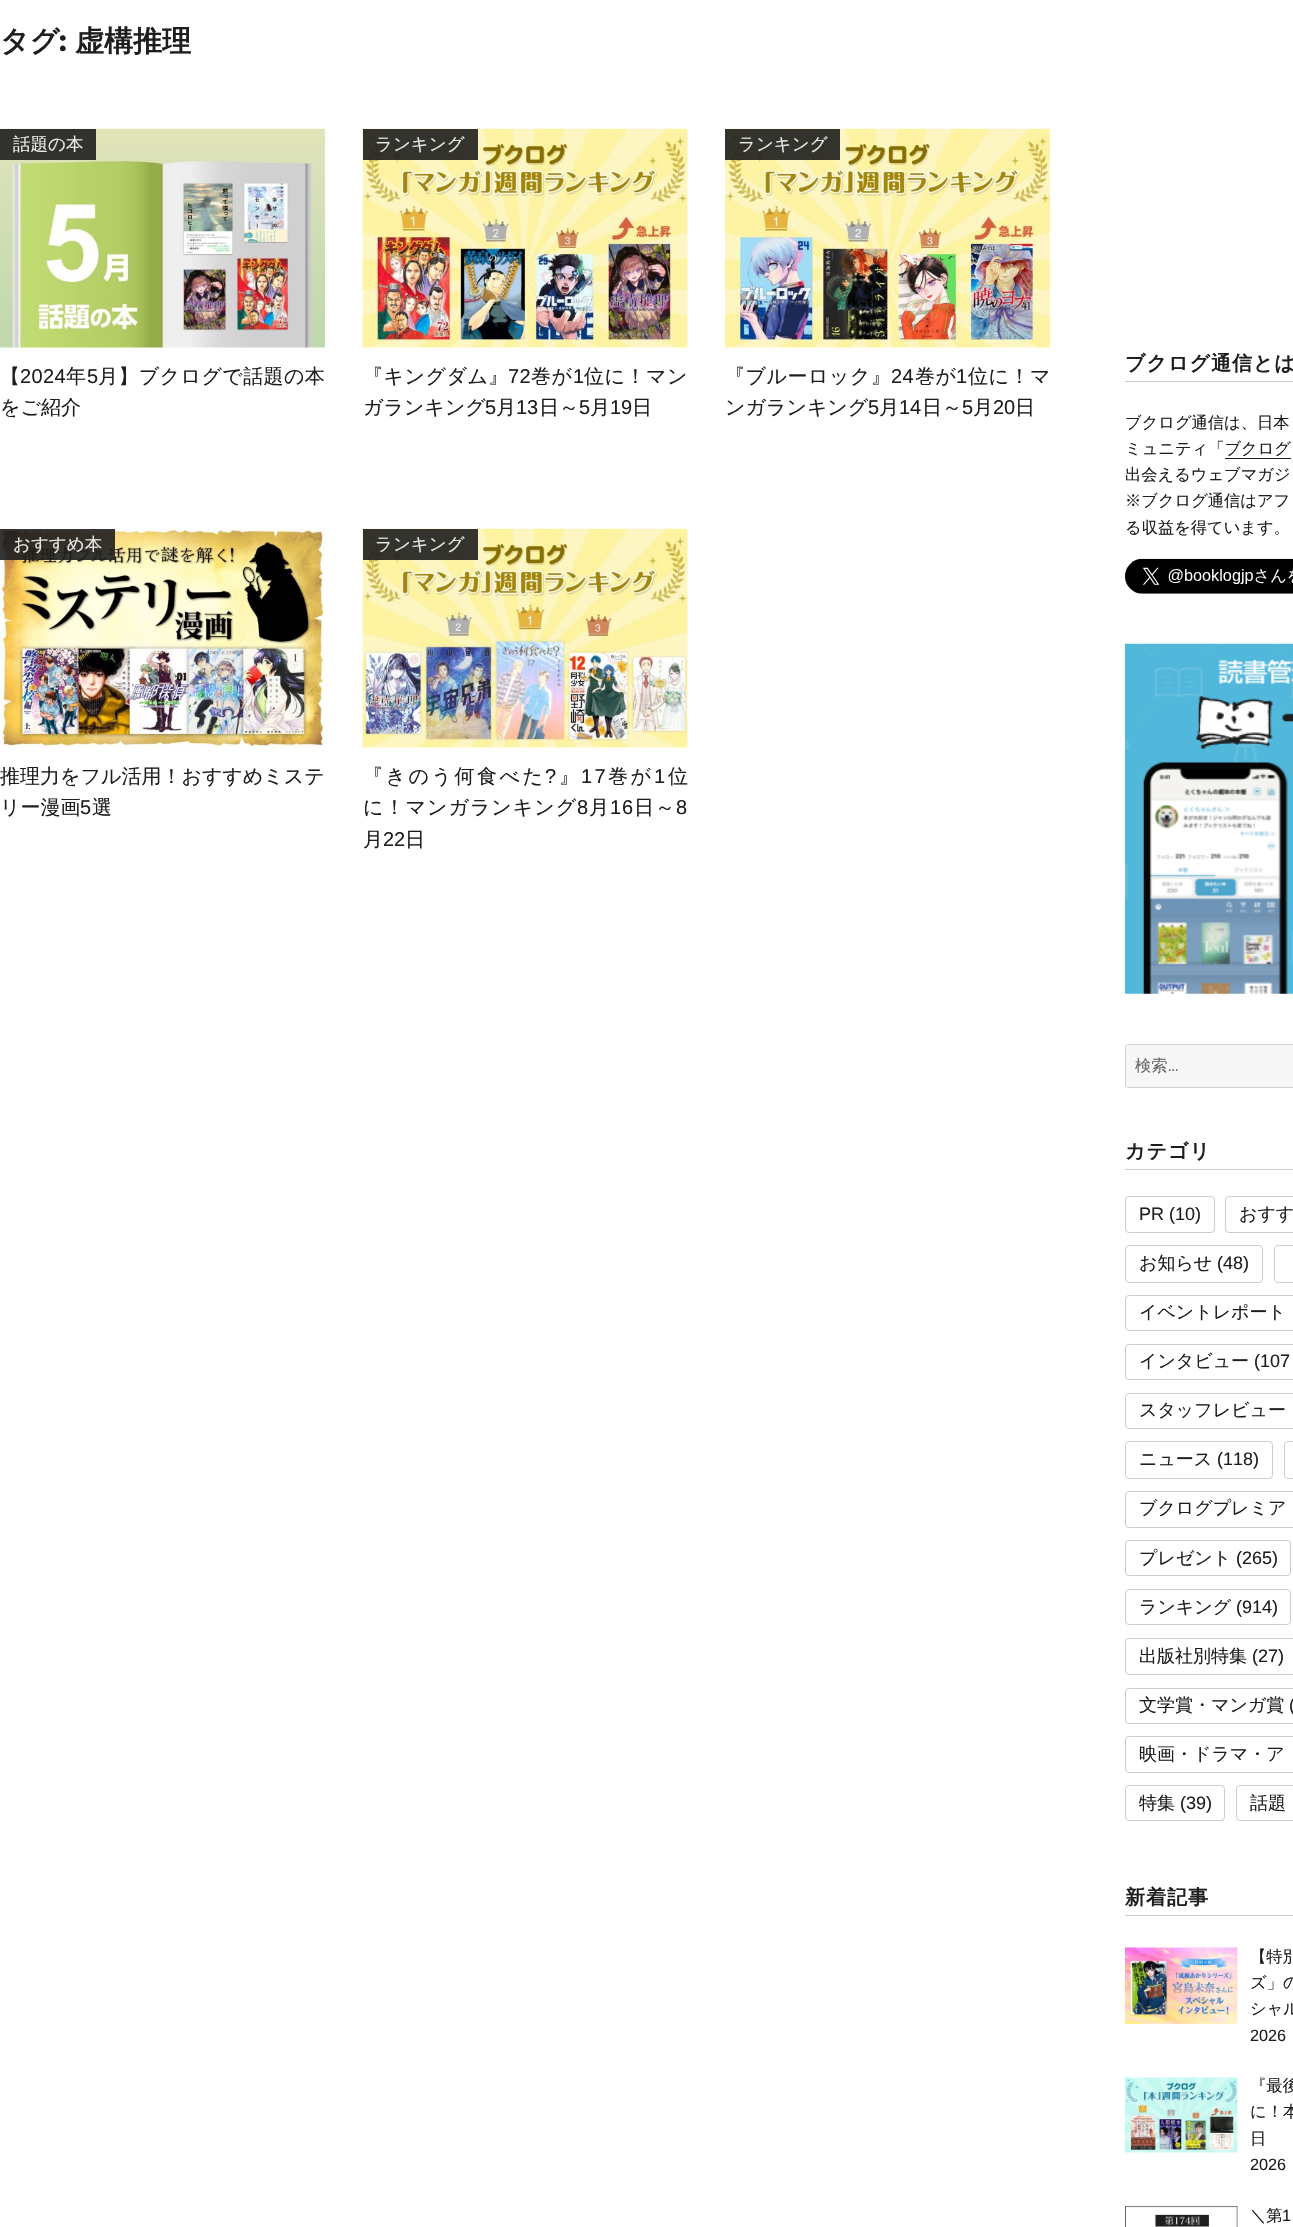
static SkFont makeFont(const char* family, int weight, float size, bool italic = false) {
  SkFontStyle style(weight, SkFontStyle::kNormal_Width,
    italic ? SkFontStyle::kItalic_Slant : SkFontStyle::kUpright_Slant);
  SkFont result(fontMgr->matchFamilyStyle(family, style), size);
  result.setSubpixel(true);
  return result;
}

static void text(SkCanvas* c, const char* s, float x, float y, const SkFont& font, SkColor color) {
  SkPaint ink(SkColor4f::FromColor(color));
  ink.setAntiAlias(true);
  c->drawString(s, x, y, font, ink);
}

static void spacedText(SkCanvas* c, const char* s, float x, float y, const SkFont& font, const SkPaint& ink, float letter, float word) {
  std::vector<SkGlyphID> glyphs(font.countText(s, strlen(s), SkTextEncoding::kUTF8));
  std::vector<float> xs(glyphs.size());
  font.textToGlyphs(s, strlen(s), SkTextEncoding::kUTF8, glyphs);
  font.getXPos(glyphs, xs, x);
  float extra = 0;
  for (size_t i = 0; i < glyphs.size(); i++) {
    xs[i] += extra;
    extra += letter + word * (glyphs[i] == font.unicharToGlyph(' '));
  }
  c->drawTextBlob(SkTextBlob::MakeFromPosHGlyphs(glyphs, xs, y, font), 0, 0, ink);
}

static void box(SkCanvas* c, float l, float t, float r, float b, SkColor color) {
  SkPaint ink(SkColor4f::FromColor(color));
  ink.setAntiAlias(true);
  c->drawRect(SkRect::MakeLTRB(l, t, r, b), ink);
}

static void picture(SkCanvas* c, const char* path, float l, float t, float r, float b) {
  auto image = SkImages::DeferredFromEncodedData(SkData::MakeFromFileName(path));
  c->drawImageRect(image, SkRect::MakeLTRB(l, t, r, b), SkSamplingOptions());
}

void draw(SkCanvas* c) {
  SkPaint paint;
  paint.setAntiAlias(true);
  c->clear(0xffffffff);
  SkFont face1 = makeFont("WenQuanYi Zen Hei", 700, 29);
  text(c, "タグ", 0, 51, face1, 0xff1e1e1e);
  SkFont face2 = makeFont("Montserrat", 100, 29);
  text(c, ":", 59, 51, face2, 0xff1e1e1e);
  text(c, "虚構推理", 75, 51, face1, 0xff1e1e1e);
  picture(c, "img_01.png", 0, 128, 325, 348);
  box(c, 0, 129, 96, 160, 0xe61e1e1e);
  SkFont face3 = makeFont("WenQuanYi Zen Hei", 500, 17.5f);
  text(c, "話題の本", 13, 150, face3, 0xffeaeaea);
  SkFont face4 = makeFont("WenQuanYi Zen Hei", 500, 20);
  paint.setColor(0xff1e1e1e);
  spacedText(c, "【", 0, 383, face4, paint, 0.4f, 0);
  SkFont face5 = makeFont("Liberation Sans", 400, 20);
  spacedText(c, "2024", 20, 383, face5, paint, 0.4f, 0);
  spacedText(c, "年", 66, 383, face4, paint, 0.4f, 0);
  spacedText(c, "5", 87, 383, face5, paint, 0.4f, 0);
  spacedText(c, "月】ブクログで話題の本", 98, 383, face4, paint, 0.4f, 0);
  text(c, "をご紹介", 0, 414, face4, 0xff1e1e1e);
  picture(c, "img_02.png", 362, 128, 688, 348);
  box(c, 363, 129, 478, 160, 0xe61e1e1e);
  text(c, "ランキング", 375, 150, face3, 0xffeaeaea);
  spacedText(c, "『キングダム』", 363, 383, face4, paint, 0.5f, 0);
  spacedText(c, "72", 508, 383, face5, paint, 0.5f, 0);
  spacedText(c, "巻が", 531, 383, face4, paint, 0.5f, 0);
  spacedText(c, "1", 573, 383, face5, paint, 0.5f, 0);
  spacedText(c, "位に！マン", 584, 383, face4, paint, 0.5f, 0);
  text(c, "ガランキング", 363, 414, face4, 0xff1e1e1e);
  text(c, "5", 485, 414, face5, 0xff1e1e1e);
  text(c, "月", 496, 414, face4, 0xff1e1e1e);
  text(c, "13", 516, 414, face5, 0xff1e1e1e);
  text(c, "日～", 539, 414, face4, 0xff1e1e1e);
  text(c, "5", 579, 414, face5, 0xff1e1e1e);
  text(c, "月", 590, 414, face4, 0xff1e1e1e);
  text(c, "19", 610, 414, face5, 0xff1e1e1e);
  text(c, "日", 632, 414, face4, 0xff1e1e1e);
  picture(c, "img_03.png", 725, 128, 1050, 348);
  box(c, 725, 129, 840, 160, 0xe61e1e1e);
  text(c, "ランキング", 738, 150, face3, 0xffeaeaea);
  spacedText(c, "『ブルーロック』", 725, 383, face4, paint, 0.5f, 0);
  spacedText(c, "24", 891, 383, face5, paint, 0.5f, 0);
  spacedText(c, "巻が", 915, 383, face4, paint, 0.5f, 0);
  spacedText(c, "1", 956, 383, face5, paint, 0.5f, 0);
  spacedText(c, "位に！マ", 968, 383, face4, paint, 0.5f, 0);
  text(c, "ンガランキング", 725, 414, face4, 0xff1e1e1e);
  text(c, "5", 868, 414, face5, 0xff1e1e1e);
  text(c, "月", 879, 414, face4, 0xff1e1e1e);
  text(c, "14", 899, 414, face5, 0xff1e1e1e);
  text(c, "日～", 922, 414, face4, 0xff1e1e1e);
  text(c, "5", 962, 414, face5, 0xff1e1e1e);
  text(c, "月", 973, 414, face4, 0xff1e1e1e);
  text(c, "20", 993, 414, face5, 0xff1e1e1e);
  text(c, "日", 1015, 414, face4, 0xff1e1e1e);
  picture(c, "img_04.png", 0, 528, 325, 748);
  box(c, 0, 529, 115, 560, 0xe61e1e1e);
  text(c, "おすすめ本", 13, 550, face3, 0xffeaeaea);
  text(c, "推理力をフル活用！おすすめミステ", 0, 783, face4, 0xff1e1e1e);
  text(c, "リー漫画", 0, 814, face4, 0xff1e1e1e);
  text(c, "5", 80, 814, face5, 0xff1e1e1e);
  text(c, "選", 92, 814, face4, 0xff1e1e1e);
  picture(c, "img_05.png", 362, 528, 688, 748);
  box(c, 363, 529, 478, 560, 0xe61e1e1e);
  text(c, "ランキング", 375, 550, face3, 0xffeaeaea);
  spacedText(c, "『きのう何食べた", 363, 783, face4, paint, 2.5f, 0);
  spacedText(c, "?", 545, 783, face5, paint, 2.5f, 0);
  spacedText(c, "』", 559, 783, face4, paint, 2.5f, 0);
  spacedText(c, "17", 581, 783, face5, paint, 2.5f, 0);
  spacedText(c, "巻が", 608, 783, face4, paint, 2.5f, 0);
  spacedText(c, "1", 654, 783, face5, paint, 2.5f, 0);
  spacedText(c, "位", 668, 783, face4, paint, 2.5f, 0);
  spacedText(c, "に！マンガランキング", 363, 814, face4, paint, 1, 0);
  spacedText(c, "8", 577, 814, face5, paint, 1, 0);
  spacedText(c, "月", 589, 814, face4, paint, 1, 0);
  spacedText(c, "16", 610, 814, face5, paint, 1, 0);
  spacedText(c, "日～", 634, 814, face4, paint, 1, 0);
  spacedText(c, "8", 676, 814, face5, paint, 1, 0);
  text(c, "月", 363, 846, face4, 0xff1e1e1e);
  text(c, "22", 383, 846, face5, 0xff1e1e1e);
  text(c, "日", 405, 846, face4, 0xff1e1e1e);
  box(c, 1125, 381, 1293, 382, 0xffcdcdcd);
  SkFont face6 = makeFont("WenQuanYi Zen Hei", 700, 20);
  spacedText(c, "ブクログ通信とは", 1125, 370, face6, paint, 1, 0);
  SkFont face7 = makeFont("WenQuanYi Zen Hei", 500, 16.25f);
  text(c, "ブクログ通信は、日本", 1125, 428, face7, 0xff1e1e1e);
  text(c, "ミュニティ「ブクログ", 1125, 454, face7, 0xff1e1e1e);
  box(c, 1225, 458, 1291, 459, 0xff1e1e1e);
  text(c, "出会えるウェブマガジ", 1125, 480, face7, 0xff1e1e1e);
  text(c, "※ブクログ通信はアフ", 1125, 506, face7, 0xff1e1e1e);
  text(c, "る収益を得ています。", 1125, 533, face7, 0xff1e1e1e);
  picture(c, "img_06.png", 1125, 558, 1293, 594);
  picture(c, "img_07.png", 1125, 643, 1293, 994);
  paint.setColor(0xfff7f7f7);
  c->drawPath(SkPathBuilder().moveTo(1127.5f, 1044.5f).lineTo(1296.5f, 1044.5f).lineTo(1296.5f, 1087.5f).lineTo(1127.5f, 1087.5f).cubicTo(1126.5f, 1087.5f, 1125.5f, 1086.5f, 1125.5f, 1085.5f).lineTo(1125.5f, 1046.5f).cubicTo(1125.5f, 1045.5f, 1126.5f, 1044.5f, 1127.5f, 1044.5f).close().detach(), paint);
  paint.setStyle(SkPaint::kStroke_Style);
  paint.setStrokeWidth(1);
  paint.setColor(0xffd1d1d1);
  c->drawPath(SkPathBuilder().moveTo(1127.5f, 1044.5f).lineTo(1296.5f, 1044.5f).lineTo(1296.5f, 1087.5f).lineTo(1127.5f, 1087.5f).cubicTo(1126.5f, 1087.5f, 1125.5f, 1086.5f, 1125.5f, 1085.5f).lineTo(1125.5f, 1046.5f).cubicTo(1125.5f, 1045.5f, 1126.5f, 1044.5f, 1127.5f, 1044.5f).close().detach(), paint);
  text(c, "検索", 1135, 1071, face7, 0xff686868);
  SkFont face8 = makeFont("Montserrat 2", 100, 16.25f);
  text(c, "…", 1168, 1071, face8, 0xff686868);
  box(c, 1125, 1169, 1293, 1170, 0xffcdcdcd);
  paint.setStyle(SkPaint::kFill_Style);
  paint.setColor(0xff1e1e1e);
  spacedText(c, "カテゴリ", 1125, 1158, face6, paint, 1, 0);
  paint.setStyle(SkPaint::kStroke_Style);
  paint.setColor(0xffcdcdcd);
  c->drawRoundRect(SkRect::MakeLTRB(1125.5f, 1196.5f, 1214.5f, 1232.5f), 3.5f, 3.5f, paint);
  SkFont face9 = makeFont("Liberation Sans", 400, 18);
  text(c, "PR (10)", 1139, 1220, face9, 0xff1e1e1e);
  c->drawRoundRect(SkRect::MakeLTRB(1225.5f, 1196.5f, 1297.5f, 1232.5f), 3.5f, 3.5f, paint);
  SkFont face10 = makeFont("WenQuanYi Zen Hei", 500, 18);
  text(c, "おすす", 1239, 1220, face10, 0xff1e1e1e);
  c->drawRoundRect(SkRect::MakeLTRB(1125.5f, 1245.5f, 1262.5f, 1282.5f), 3.5f, 3.5f, paint);
  text(c, "お知らせ", 1139, 1269, face10, 0xff1e1e1e);
  text(c, "(48)", 1217, 1269, face9, 0xff1e1e1e);
  c->drawRoundRect(SkRect::MakeLTRB(1274.5f, 1245.5f, 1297.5f, 1282.5f), 3.5f, 3.5f, paint);
  c->drawRoundRect(SkRect::MakeLTRB(1125.5f, 1295.5f, 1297.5f, 1330.5f), 3.5f, 3.5f, paint);
  text(c, "イベントレポート", 1139, 1318, face10, 0xff1e1e1e);
  c->drawRoundRect(SkRect::MakeLTRB(1125.5f, 1344.5f, 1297.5f, 1379.5f), 3.5f, 3.5f, paint);
  text(c, "インタビュー", 1139, 1367, face10, 0xff1e1e1e);
  text(c, "(107", 1254, 1367, face9, 0xff1e1e1e);
  c->drawRoundRect(SkRect::MakeLTRB(1125.5f, 1393.5f, 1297.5f, 1428.5f), 3.5f, 3.5f, paint);
  text(c, "スタッフレビュー", 1139, 1416, face10, 0xff1e1e1e);
  c->drawRoundRect(SkRect::MakeLTRB(1125.5f, 1441.5f, 1272.5f, 1478.5f), 3.5f, 3.5f, paint);
  text(c, "ニュース", 1139, 1465, face10, 0xff1e1e1e);
  text(c, "(118)", 1217, 1465, face9, 0xff1e1e1e);
  c->drawRoundRect(SkRect::MakeLTRB(1284.5f, 1441.5f, 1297.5f, 1478.5f), 3.5f, 3.5f, paint);
  c->drawRoundRect(SkRect::MakeLTRB(1125.5f, 1491.5f, 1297.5f, 1527.5f), 3.5f, 3.5f, paint);
  text(c, "ブクログプレミア", 1139, 1514, face10, 0xff1e1e1e);
  c->drawRoundRect(SkRect::MakeLTRB(1125.5f, 1540.5f, 1290.5f, 1575.5f), 3.5f, 3.5f, paint);
  text(c, "プレゼント", 1139, 1564, face10, 0xff1e1e1e);
  text(c, "(265)", 1236, 1564, face9, 0xff1e1e1e);
  c->drawRoundRect(SkRect::MakeLTRB(1125.5f, 1589.5f, 1290.5f, 1624.5f), 3.5f, 3.5f, paint);
  text(c, "ランキング", 1139, 1613, face10, 0xff1e1e1e);
  text(c, "(914)", 1236, 1613, face9, 0xff1e1e1e);
  c->drawRoundRect(SkRect::MakeLTRB(1125.5f, 1638.5f, 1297.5f, 1674.5f), 3.5f, 3.5f, paint);
  text(c, "出版社別特集", 1139, 1662, face10, 0xff1e1e1e);
  text(c, "(27)", 1252, 1662, face9, 0xff1e1e1e);
  c->drawRoundRect(SkRect::MakeLTRB(1125.5f, 1688.5f, 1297.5f, 1723.5f), 3.5f, 3.5f, paint);
  text(c, "文学賞・マンガ賞", 1139, 1711, face10, 0xff1e1e1e);
  text(c, "(", 1289, 1711, face9, 0xff1e1e1e);
  c->drawRoundRect(SkRect::MakeLTRB(1125.5f, 1736.5f, 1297.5f, 1772.5f), 3.5f, 3.5f, paint);
  text(c, "映画・ドラマ・ア", 1139, 1760, face10, 0xff1e1e1e);
  c->drawRoundRect(SkRect::MakeLTRB(1125.5f, 1785.5f, 1224.5f, 1820.5f), 3.5f, 3.5f, paint);
  text(c, "特集", 1139, 1809, face10, 0xff1e1e1e);
  text(c, "(39)", 1180, 1809, face9, 0xff1e1e1e);
  c->drawRoundRect(SkRect::MakeLTRB(1236.5f, 1785.5f, 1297.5f, 1820.5f), 3.5f, 3.5f, paint);
  text(c, "話題", 1250, 1809, face10, 0xff1e1e1e);
  box(c, 1125, 1915, 1293, 1916, 0xffcdcdcd);
  paint.setStyle(SkPaint::kFill_Style);
  paint.setColor(0xff1e1e1e);
  spacedText(c, "新着記事", 1125, 1904, face6, paint, 1, 0);
  picture(c, "img_08.png", 1125, 1947, 1238, 2024);
  text(c, "【特別", 1250, 1962, face7, 0xff1e1e1e);
  text(c, "ズ」の", 1250, 1988, face7, 0xff1e1e1e);
  text(c, "シャル", 1250, 2014, face7, 0xff1e1e1e);
  SkFont face11 = makeFont("Liberation Sans", 400, 16.25f);
  text(c, "2026", 1250, 2041, face11, 0xff1e1e1e);
  picture(c, "img_09.png", 1125, 2077, 1238, 2153);
  text(c, "『最後", 1250, 2091, face7, 0xff1e1e1e);
  text(c, "に！本", 1250, 2117, face7, 0xff1e1e1e);
  text(c, "日", 1250, 2144, face7, 0xff1e1e1e);
  text(c, "2026", 1250, 2170, face11, 0xff1e1e1e);
  picture(c, "img_10.png", 1125, 2206, 1238, 2227);
  text(c, "＼第", 1250, 2221, face7, 0xff1e1e1e);
  text(c, "1", 1282, 2221, face11, 0xff1e1e1e);
}
